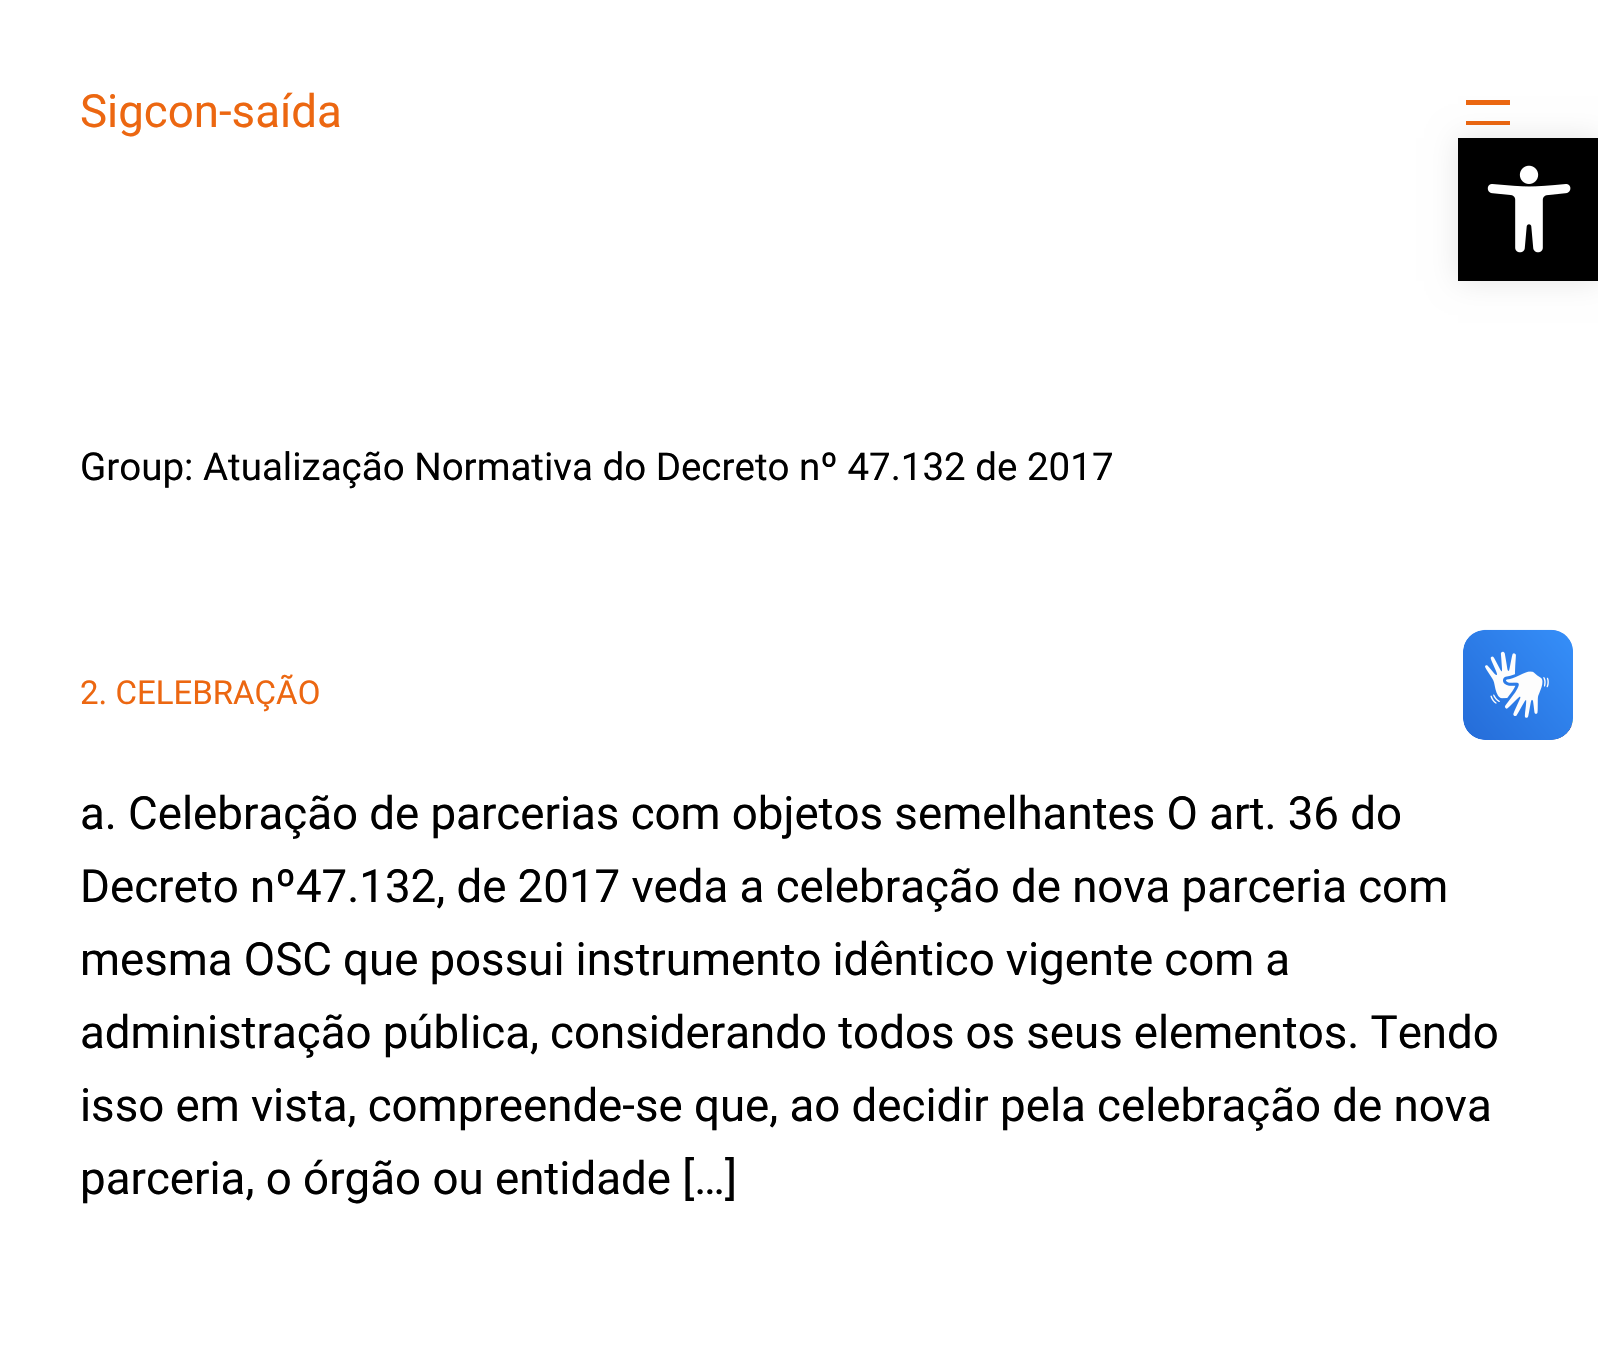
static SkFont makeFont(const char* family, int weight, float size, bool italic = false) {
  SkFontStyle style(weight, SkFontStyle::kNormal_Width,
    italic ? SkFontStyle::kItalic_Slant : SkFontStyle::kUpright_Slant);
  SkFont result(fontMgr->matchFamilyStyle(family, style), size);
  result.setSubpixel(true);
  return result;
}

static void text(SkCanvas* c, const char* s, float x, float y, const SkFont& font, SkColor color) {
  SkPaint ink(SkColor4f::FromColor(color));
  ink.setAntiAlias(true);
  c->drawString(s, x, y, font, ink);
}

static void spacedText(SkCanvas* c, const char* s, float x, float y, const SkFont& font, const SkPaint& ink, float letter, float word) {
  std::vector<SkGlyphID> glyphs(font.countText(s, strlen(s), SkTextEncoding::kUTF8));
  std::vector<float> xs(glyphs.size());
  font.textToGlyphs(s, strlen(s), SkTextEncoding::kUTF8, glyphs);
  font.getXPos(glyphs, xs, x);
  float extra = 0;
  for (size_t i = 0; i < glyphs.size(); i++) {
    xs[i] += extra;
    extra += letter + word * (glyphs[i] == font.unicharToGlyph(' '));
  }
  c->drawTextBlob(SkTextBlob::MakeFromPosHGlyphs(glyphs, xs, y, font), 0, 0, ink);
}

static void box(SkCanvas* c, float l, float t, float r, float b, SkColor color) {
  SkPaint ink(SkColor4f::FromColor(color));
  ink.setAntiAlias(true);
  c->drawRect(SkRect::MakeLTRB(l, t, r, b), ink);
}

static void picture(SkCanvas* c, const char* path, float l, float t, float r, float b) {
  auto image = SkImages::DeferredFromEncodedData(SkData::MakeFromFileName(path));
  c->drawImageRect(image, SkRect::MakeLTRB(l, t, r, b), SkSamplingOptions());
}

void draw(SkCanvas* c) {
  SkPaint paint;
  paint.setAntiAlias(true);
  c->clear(0xffffffff);
  SkFont face1 = makeFont("Roboto", 400, 45.65f);
  text(c, "Sigcon-saída", 80, 127, face1, 0xffec6711);
  box(c, 1466, 100, 1510, 105, 0xffec6711);
  box(c, 1466, 121, 1510, 125, 0xffec6711);
  SkFont face2 = makeFont("Roboto", 400, 38.5f);
  text(c, "Group: Atualização Normativa do Decreto nº 47.132 de 2017", 80, 480, face2, 0xff000000);
  SkFont face3 = makeFont("Roboto", 400, 33);
  text(c, "2. CELEBRAÇÃO", 80, 704, face3, 0xffec6711);
  paint.setColor(0xff000000);
  spacedText(c, "a. Celebração de parcerias com objetos semelhantes O art. 36 do", 80, 829, face1, paint, 0, -0.1f);
  spacedText(c, "Decreto nº47.132, de 2017 veda a celebração de nova parceria com", 80, 902, face1, paint, 0, -0.1f);
  spacedText(c, "mesma OSC que possui instrumento idêntico vigente com a", 80, 975, face1, paint, 0, -0.25f);
  spacedText(c, "administração pública, considerando todos os seus elementos. Tendo", 80, 1048, face1, paint, 0, -0.25f);
  spacedText(c, "isso em vista, compreende-se que, ao decidir pela celebração de nova", 80, 1121, face1, paint, 0, -0.1f);
  text(c, "parceria, o órgão ou entidade […]", 80, 1194, face1, 0xff000000);
  paint.setColor(0x1a000000);
  paint.setMaskFilter(SkMaskFilter::MakeBlur(kNormal_SkBlurStyle, 14));
  c->drawRect(SkRect::MakeLTRB(1458, 138, 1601, 281), paint);
  paint.setMaskFilter(nullptr);
  box(c, 1458, 138, 1598, 281, 0xff000000);
  picture(c, "img_01.png", 1487, 165, 1571, 253);
  picture(c, "img_02.png", 1463, 629, 1573, 740);
  picture(c, "img_03.png", 1463, 630, 1573, 740);
}
